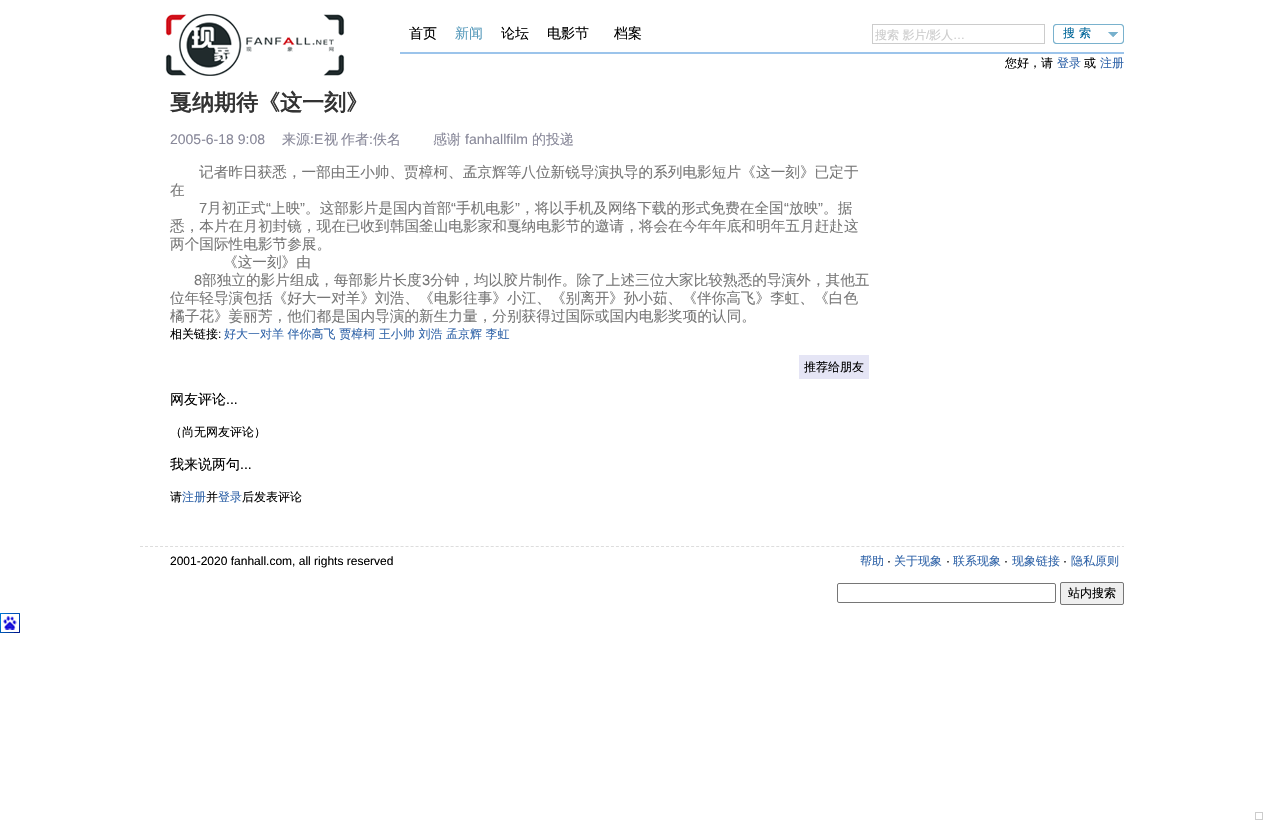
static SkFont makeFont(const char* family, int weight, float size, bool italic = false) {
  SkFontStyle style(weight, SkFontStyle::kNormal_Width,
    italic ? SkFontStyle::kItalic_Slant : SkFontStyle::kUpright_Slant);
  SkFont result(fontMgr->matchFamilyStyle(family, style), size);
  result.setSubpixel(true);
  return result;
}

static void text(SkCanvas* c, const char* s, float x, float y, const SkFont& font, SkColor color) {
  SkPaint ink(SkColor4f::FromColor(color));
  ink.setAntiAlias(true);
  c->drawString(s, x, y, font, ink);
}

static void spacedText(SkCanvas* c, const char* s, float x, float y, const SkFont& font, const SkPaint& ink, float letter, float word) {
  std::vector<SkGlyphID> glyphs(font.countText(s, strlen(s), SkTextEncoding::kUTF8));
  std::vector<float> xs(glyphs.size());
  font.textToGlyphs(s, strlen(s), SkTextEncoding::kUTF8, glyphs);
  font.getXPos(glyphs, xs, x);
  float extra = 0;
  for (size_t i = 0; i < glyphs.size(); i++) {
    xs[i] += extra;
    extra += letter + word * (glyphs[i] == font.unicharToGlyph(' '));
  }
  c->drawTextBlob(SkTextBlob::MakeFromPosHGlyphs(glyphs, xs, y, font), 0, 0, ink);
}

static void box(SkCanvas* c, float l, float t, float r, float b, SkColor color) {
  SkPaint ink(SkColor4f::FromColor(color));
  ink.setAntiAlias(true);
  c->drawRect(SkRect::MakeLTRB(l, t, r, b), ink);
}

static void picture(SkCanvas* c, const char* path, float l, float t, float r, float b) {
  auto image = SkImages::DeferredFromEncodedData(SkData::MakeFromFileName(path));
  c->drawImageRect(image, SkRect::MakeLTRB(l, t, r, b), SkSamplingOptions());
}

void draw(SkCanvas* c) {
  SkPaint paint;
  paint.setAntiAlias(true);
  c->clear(0xffffffff);
  picture(c, "img_01.png", 165, 14, 345, 76);
  box(c, 400, 52, 1124, 54, 0xff9cc4eb);
  SkFont face1 = makeFont("WenQuanYi Zen Hei", 500, 14);
  text(c, "首页", 409, 38, face1, 0xff000000);
  text(c, "新闻", 455, 38, face1, 0xff589bbc);
  text(c, "论坛", 501, 38, face1, 0xff000000);
  text(c, "电影节", 547, 38, face1, 0xff000000);
  text(c, "档案", 614, 38, face1, 0xff000000);
  paint.setStyle(SkPaint::kStroke_Style);
  paint.setStrokeWidth(1);
  paint.setColor(0xffcccccc);
  c->drawRect(SkRect::MakeLTRB(872.5f, 24.5f, 1044.5f, 43.5f), paint);
  c->save();
  c->clipRect(SkRect::MakeLTRB(875, 27, 1044, 43));
  SkFont face2 = makeFont("WenQuanYi Zen Hei", 500, 12);
  text(c, "搜索 影片", 875, 39, face2, 0xffcccccc);
  c->restore();
  SkFont face3 = makeFont("Liberation Sans", 400, 12);
  text(c, "/", 926, 39, face3, 0xffcccccc);
  text(c, "影人", 929, 39, face2, 0xffcccccc);
  text(c, "…", 953, 39, face3, 0xffcccccc);
  picture(c, "img_02.png", 1053, 24, 1104, 44);
  paint.setStyle(SkPaint::kFill_Style);
  paint.setColor(0xff006699);
  spacedText(c, "搜索", 1063, 37, face2, paint, 4, 0);
  picture(c, "img_03.png", 1104, 24, 1124, 44);
  text(c, "您好，请", 1005, 67, face2, 0xff000000);
  text(c, "登录", 1057, 67, face2, 0xff3366aa);
  text(c, "或", 1084, 67, face2, 0xff000000);
  text(c, "注册", 1100, 67, face2, 0xff3366aa);
  SkFont face4 = makeFont("WenQuanYi Zen Hei", 700, 22);
  text(c, "戛纳期待《这一刻》", 170, 110, face4, 0xff333333);
  SkFont face5 = makeFont("Liberation Sans", 400, 14);
  text(c, "2005-6-18 9:08", 170, 144, face5, 0xff888899);
  text(c, "来源", 282, 144, face1, 0xff888899);
  text(c, ":E", 310, 144, face5, 0xff888899);
  text(c, "视", 324, 144, face1, 0xff888899);
  text(c, "作者", 341, 144, face1, 0xff888899);
  text(c, ":", 369, 144, face5, 0xff888899);
  text(c, "佚名", 373, 144, face1, 0xff888899);
  text(c, "感谢", 433, 144, face1, 0xff888899);
  text(c, "fanhallfilm", 465, 144, face5, 0xff888899);
  text(c, "的投递", 532, 144, face1, 0xff888899);
  SkFont face6 = makeFont("WenQuanYi Zen Hei", 500, 14.65f);
  text(c, "记者昨日获悉，一部由王小帅、贾樟柯、孟京辉等八位新锐导演执导的系列电影短片《", 199, 177, face6, 0xff777777);
  text(c, "这一刻》已定于", 756, 177, face6, 0xff777777);
  text(c, "在", 170, 195, face6, 0xff777777);
  SkFont face7 = makeFont("Liberation Sans", 400, 14.65f);
  text(c, "7", 199, 213, face7, 0xff777777);
  text(c, "月初正式", 207, 213, face6, 0xff777777);
  text(c, "“", 266, 213, face7, 0xff777777);
  text(c, "上映", 271, 213, face6, 0xff777777);
  text(c, "”", 300, 213, face7, 0xff777777);
  text(c, "。这部影片是国内首部", 305, 213, face6, 0xff777777);
  text(c, "“", 451, 213, face7, 0xff777777);
  text(c, "手机电影", 456, 213, face6, 0xff777777);
  text(c, "”", 515, 213, face7, 0xff777777);
  text(c, "，将以手机及网络下载的形式免费在全国", 520, 213, face6, 0xff777777);
  text(c, "“", 784, 213, face7, 0xff777777);
  text(c, "放映", 789, 213, face6, 0xff777777);
  text(c, "”", 818, 213, face7, 0xff777777);
  text(c, "。据", 823, 213, face6, 0xff777777);
  text(c, "悉，本片在月初封镜，现在已收到韩国釜山电影家和戛纳电影节的邀请，将会在今年年底和明年五月赶赴这", 170, 231, face6, 0xff777777);
  text(c, "两个国际性电影节参展。", 170, 249, face6, 0xff777777);
  text(c, "《这一刻》由", 223, 267, face6, 0xff777777);
  text(c, "8", 194, 285, face7, 0xff777777);
  text(c, "部独立的影片组成，每部影片长度", 202, 285, face6, 0xff777777);
  text(c, "3", 422, 285, face7, 0xff777777);
  text(c, "分钟，均以胶片制作。除了上述三位大家比较熟悉的导演外，其他五", 430, 285, face6, 0xff777777);
  text(c, "位年轻导演包括《好大一对羊》刘浩、《电影往事》小江、《别离开", 170, 303, face6, 0xff777777);
  text(c, "》孙小茹、《伴你高飞》李虹、《白色", 609, 303, face6, 0xff777777);
  text(c, "橘子花》姜丽芳，他们都是国内导演的新生力量，分别获得过国际或国内电影奖项的认同。", 170, 321, face6, 0xff777777);
  text(c, "相关链接", 170, 338, face2, 0xff000000);
  text(c, ":", 218, 338, face3, 0xff000000);
  text(c, "好大一对羊 伴你高飞 贾樟柯 王小帅 刘浩 孟京辉 李虹", 224, 338, face2, 0xff3366aa);
  box(c, 799, 355, 869, 379, 0xffe5e5f5);
  text(c, "推荐给朋友", 804, 371, face2, 0xff000000);
  text(c, "网友评论", 170, 404, face1, 0xff000000);
  text(c, "...", 226, 404, face5, 0xff000000);
  text(c, "（尚无网友评论）", 170, 436, face2, 0xff000000);
  text(c, "我来说两句", 170, 469, face1, 0xff000000);
  text(c, "...", 240, 469, face5, 0xff000000);
  text(c, "请", 170, 501, face2, 0xff000000);
  text(c, "注册", 182, 501, face2, 0xff3366aa);
  text(c, "并", 206, 501, face2, 0xff000000);
  text(c, "登录", 218, 501, face2, 0xff3366aa);
  text(c, "后发表评论", 242, 501, face2, 0xff000000);
  paint.setStyle(SkPaint::kStroke_Style);
  paint.setColor(0xffdddddd);
  paint.setPathEffect(SkDashPathEffect::Make({{3, 2.01f}}, 0));
  c->drawPath(SkPathBuilder().moveTo(140, 546.5f).lineTo(1124, 546.5f).detach(), paint);
  paint.setPathEffect(nullptr);
  text(c, "2001-2020 fanhall.com, all rights reserved", 170, 565, face3, 0xff000000);
  text(c, "帮助", 860, 565, face2, 0xff3366aa);
  text(c, "·", 887, 565, face3, 0xff000000);
  text(c, "关于现象", 894, 565, face2, 0xff3366aa);
  text(c, "·", 946, 565, face3, 0xff000000);
  text(c, "联系现象", 953, 565, face2, 0xff3366aa);
  text(c, "·", 1004, 565, face3, 0xff000000);
  text(c, "现象链接", 1012, 565, face2, 0xff3366aa);
  text(c, "·", 1063, 565, face3, 0xff000000);
  text(c, "隐私原则", 1071, 565, face2, 0xff3366aa);
  paint.setColor(0xff767676);
  c->drawRoundRect(SkRect::MakeLTRB(837.5f, 583.5f, 1055.5f, 602.5f), 1.5f, 1.5f, paint);
  paint.setStyle(SkPaint::kFill_Style);
  paint.setColor(0xffefefef);
  c->drawRoundRect(SkRect::MakeLTRB(1060.5f, 582.5f, 1123.5f, 604.5f), 1.5f, 1.5f, paint);
  paint.setStyle(SkPaint::kStroke_Style);
  paint.setColor(0xff767676);
  c->drawRoundRect(SkRect::MakeLTRB(1060.5f, 582.5f, 1123.5f, 604.5f), 1.5f, 1.5f, paint);
  text(c, "站内搜索", 1068, 597, face2, 0xff000000);
  picture(c, "img_04.png", 0, 613, 20, 633);
  paint.setColor(0xffcccccc);
  c->drawRect(SkRect::MakeLTRB(1255.5f, 812.5f, 1262.5f, 819.5f), paint);
}
